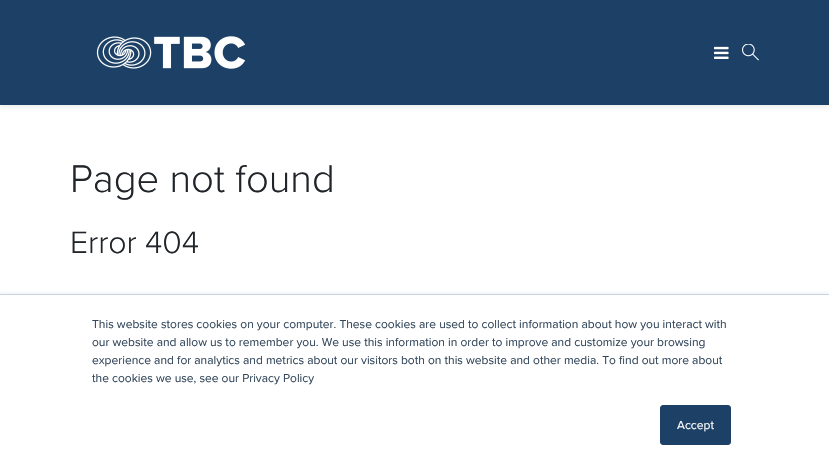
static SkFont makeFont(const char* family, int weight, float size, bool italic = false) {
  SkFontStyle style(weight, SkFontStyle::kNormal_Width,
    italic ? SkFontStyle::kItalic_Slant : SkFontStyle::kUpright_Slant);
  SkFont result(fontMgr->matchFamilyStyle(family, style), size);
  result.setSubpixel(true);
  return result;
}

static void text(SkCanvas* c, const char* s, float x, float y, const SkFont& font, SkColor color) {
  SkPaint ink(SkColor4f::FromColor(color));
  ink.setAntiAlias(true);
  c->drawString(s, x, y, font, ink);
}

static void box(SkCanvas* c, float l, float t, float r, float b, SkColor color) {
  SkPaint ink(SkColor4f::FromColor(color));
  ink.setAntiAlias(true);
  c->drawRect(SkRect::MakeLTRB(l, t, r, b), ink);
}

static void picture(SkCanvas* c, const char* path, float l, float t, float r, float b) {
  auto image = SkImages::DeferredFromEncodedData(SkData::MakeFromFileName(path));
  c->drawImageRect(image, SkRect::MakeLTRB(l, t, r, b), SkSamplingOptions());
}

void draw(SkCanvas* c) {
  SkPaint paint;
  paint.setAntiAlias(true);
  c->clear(0xffffffff);
  paint.setColor(0x12000000);
  paint.setMaskFilter(SkMaskFilter::MakeBlur(kNormal_SkBlurStyle, 2));
  c->drawRect(SkRect::MakeLTRB(0, 2, 829, 107), paint);
  paint.setMaskFilter(nullptr);
  box(c, 0, 0, 829, 105, 0xff1c4066);
  picture(c, "img_01.png", 96, 36, 246, 69);
  picture(c, "img_02.png", 714, 46, 729, 59);
  picture(c, "img_03.png", 742, 44, 759, 61);
  SkFont face1 = makeFont("Proxima Nova", 300, 40);
  text(c, "Page not found", 70, 192, face1, 0xff212529);
  SkFont face2 = makeFont("Proxima Nova", 300, 32);
  text(c, "Error 404", 70, 253, face2, 0xff212529);
  paint.setColor(0xffeaf0f6);
  paint.setMaskFilter(SkMaskFilter::MakeBlur(kNormal_SkBlurStyle, 1.5f));
  c->drawRect(SkRect::MakeLTRB(0, 293, 829, 470), paint);
  paint.setMaskFilter(nullptr);
  box(c, 0, 295, 829, 471, 0xffffffff);
  box(c, 0, 294, 829, 295, 0xffcbd6e2);
  SkFont face3 = makeFont("Proxima Nova", 400, 12);
  text(c, "This website stores cookies on your computer. These cookies are used to collect information about how you interact with", 92, 328, face3, 0xff33475b);
  text(c, "our website and allow us to remember you. We use this information in order to improve and customize your browsing", 92, 346, face3, 0xff33475b);
  text(c, "experience and for analytics and metrics about our visitors both on this website and other media. To find out more about", 92, 364, face3, 0xff33475b);
  text(c, "the cookies we use, see our Privacy Policy", 92, 382, face3, 0xff33475b);
  paint.setColor(0xff1c4066);
  c->drawRoundRect(SkRect::MakeLTRB(660.5f, 405.5f, 730.5f, 444.5f), 2.5f, 2.5f, paint);
  paint.setStyle(SkPaint::kStroke_Style);
  paint.setStrokeWidth(1);
  c->drawRoundRect(SkRect::MakeLTRB(660.5f, 405.5f, 730.5f, 444.5f), 2.5f, 2.5f, paint);
  text(c, "Accept", 677, 429, face3, 0xffffffff);
}
